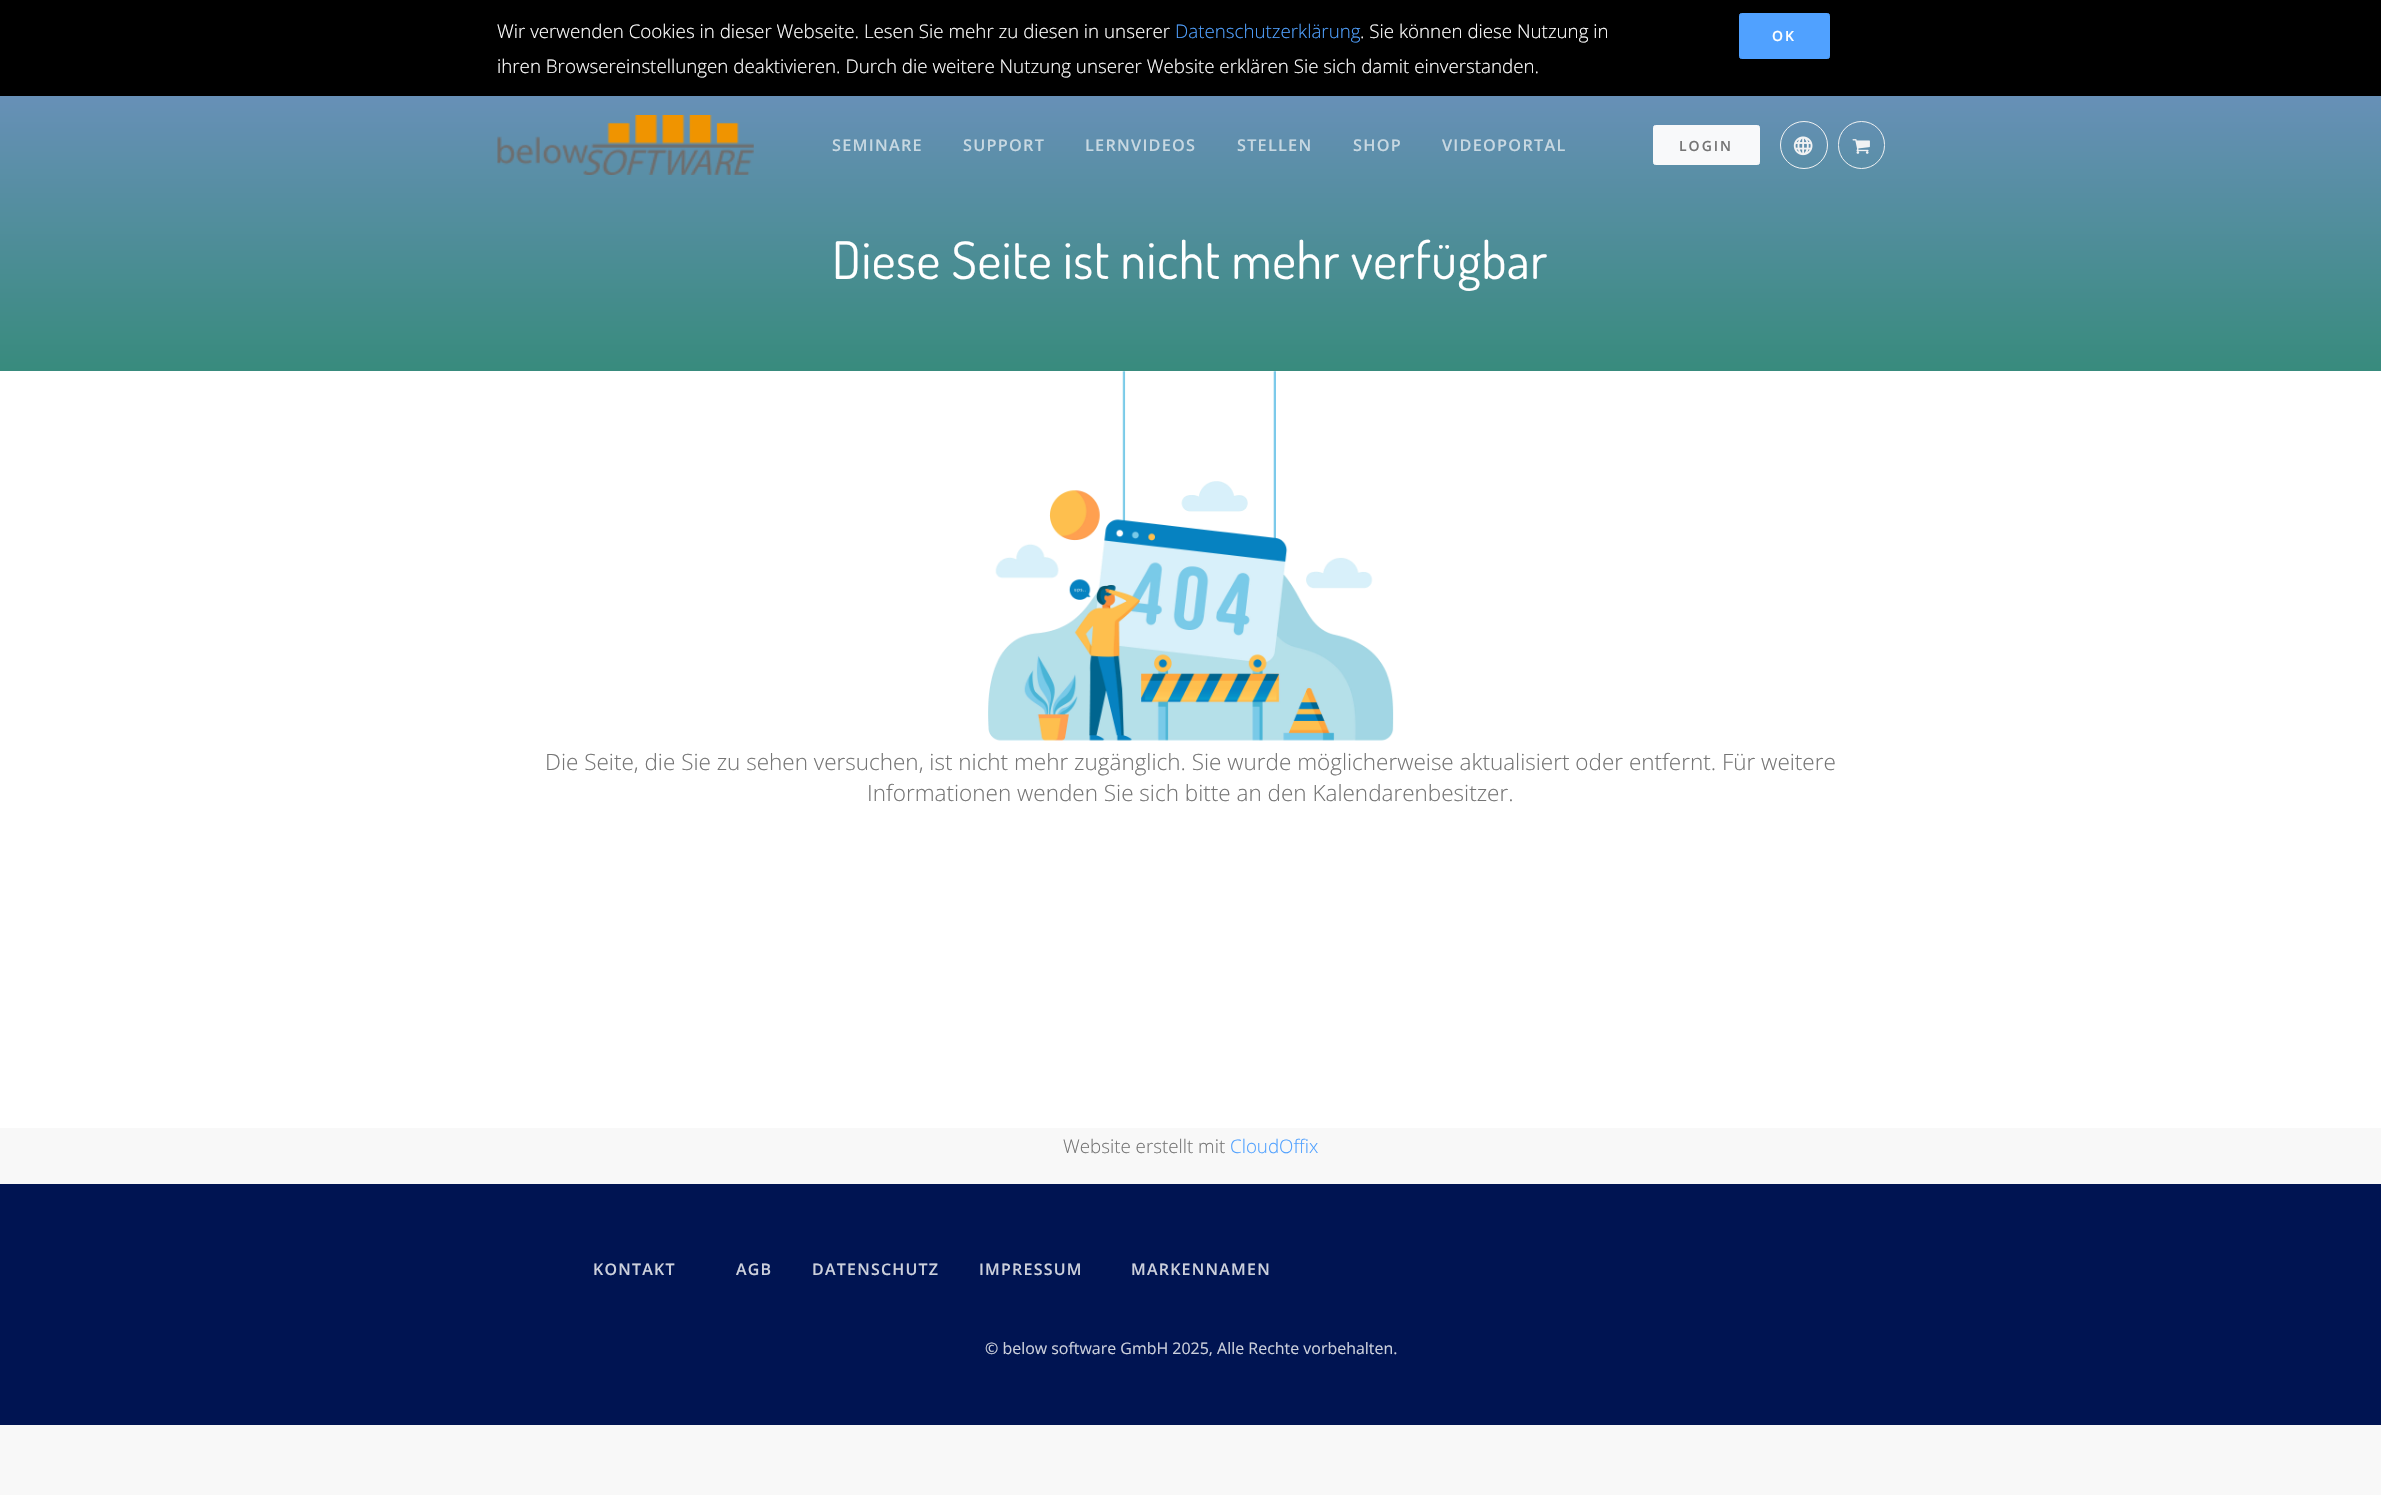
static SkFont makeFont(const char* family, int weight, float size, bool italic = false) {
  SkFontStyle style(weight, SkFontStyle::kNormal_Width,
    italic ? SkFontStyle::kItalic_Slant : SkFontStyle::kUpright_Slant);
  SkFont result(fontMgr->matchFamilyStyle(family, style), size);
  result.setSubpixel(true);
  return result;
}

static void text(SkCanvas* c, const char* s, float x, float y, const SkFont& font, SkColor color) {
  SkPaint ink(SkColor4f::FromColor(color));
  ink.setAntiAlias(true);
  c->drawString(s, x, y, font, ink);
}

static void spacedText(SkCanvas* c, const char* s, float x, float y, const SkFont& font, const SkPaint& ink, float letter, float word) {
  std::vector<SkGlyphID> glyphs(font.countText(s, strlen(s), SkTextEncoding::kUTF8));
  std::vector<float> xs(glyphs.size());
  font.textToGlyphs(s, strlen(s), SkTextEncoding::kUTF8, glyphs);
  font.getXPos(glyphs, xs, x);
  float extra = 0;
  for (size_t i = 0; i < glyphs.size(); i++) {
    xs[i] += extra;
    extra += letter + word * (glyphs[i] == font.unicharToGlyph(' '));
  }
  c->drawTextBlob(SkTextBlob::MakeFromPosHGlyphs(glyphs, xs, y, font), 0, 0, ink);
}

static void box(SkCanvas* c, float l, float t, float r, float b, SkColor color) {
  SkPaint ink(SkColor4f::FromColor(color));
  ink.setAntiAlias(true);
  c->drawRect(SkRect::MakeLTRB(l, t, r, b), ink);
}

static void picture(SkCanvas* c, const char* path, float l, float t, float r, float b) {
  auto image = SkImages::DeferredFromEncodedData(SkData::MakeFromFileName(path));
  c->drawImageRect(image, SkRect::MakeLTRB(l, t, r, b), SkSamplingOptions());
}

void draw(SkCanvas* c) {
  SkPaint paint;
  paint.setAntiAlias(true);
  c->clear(0xffffffff);
  box(c, 0, 0, 2381, 96, 0xff000000);
  SkFont face1 = makeFont("Open Sans", 300, 18.75f);
  text(c, "Wir verwenden Cookies in dieser Webseite. Lesen Sie mehr zu diesen in unserer", 497, 38, face1, 0xffffffff);
  text(c, "Datenschutzerklärung", 1175, 38, face1, 0xff50a1ff);
  text(c, ". Sie können diese Nutzung in", 1360, 38, face1, 0xffffffff);
  text(c, "ihren Browsereinstellungen deaktivieren. Durch die weitere Nutzung unserer Website erklären Sie sich damit einverstanden.", 497, 73, face1, 0xffffffff);
  paint.setColor(0xff50a1ff);
  c->drawRoundRect(SkRect::MakeLTRB(1739.5f, 13.5f, 1829.5f, 58.5f), 2, 2, paint);
  paint.setStyle(SkPaint::kStroke_Style);
  paint.setStrokeWidth(1);
  c->drawRoundRect(SkRect::MakeLTRB(1739.5f, 13.5f, 1829.5f, 58.5f), 2, 2, paint);
  SkFont face2 = makeFont("Open Sans", 600, 14);
  paint.setStyle(SkPaint::kFill_Style);
  paint.setColor(0xffffffff);
  spacedText(c, "OK", 1772, 41, face2, paint, 2, 0);
  {
    const SkColor colors[] = {0xff388b7d, 0xff6790b7};
    const float stops[] = {0, 1};
    const SkPoint ends[] = {{1191, 371}, {1191, 96}};
    paint.setShader(SkGradientShader::MakeLinear(ends, colors, stops, 2, SkTileMode::kClamp));
    paint.setAlpha(255);
  }
  c->drawRect(SkRect::MakeLTRB(0, 96, 2381, 371), paint);
  picture(c, "img_01.png", 497, 115, 754, 175);
  SkFont face3 = makeFont("Open Sans", 600, 16.25f);
  paint.setShader(nullptr);
  paint.setColor(0xffc7d8e2);
  spacedText(c, "SEMINARE", 832, 151, face3, paint, 1.25f, 0);
  spacedText(c, "SUPPORT", 963, 151, face3, paint, 1.25f, 0);
  spacedText(c, "LERNVIDEOS", 1085, 151, face3, paint, 1.25f, 0);
  spacedText(c, "STELLEN", 1237, 151, face3, paint, 1.25f, 0);
  spacedText(c, "SHOP", 1353, 151, face3, paint, 1.25f, 0);
  spacedText(c, "VIDEOPORTAL", 1442, 151, face3, paint, 1.25f, 0);
  paint.setColor(0xfff8f9fa);
  c->drawRoundRect(SkRect::MakeLTRB(1653.5f, 125.5f, 1759.5f, 164.5f), 2, 2, paint);
  paint.setStyle(SkPaint::kStroke_Style);
  c->drawRoundRect(SkRect::MakeLTRB(1653.5f, 125.5f, 1759.5f, 164.5f), 2, 2, paint);
  paint.setStyle(SkPaint::kFill_Style);
  paint.setColor(0xff757575);
  spacedText(c, "LOGIN", 1679, 151, face2, paint, 2, 0);
  paint.setStyle(SkPaint::kStroke_Style);
  paint.setColor(0xfff1f2f3);
  c->drawCircle(1804, 145, 23.5f, paint);
  picture(c, "img_02.png", 1793, 136, 1813, 156);
  c->drawRoundRect(SkRect::MakeLTRB(1838.5f, 121.5f, 1884.5f, 168.5f), 23, 23, paint);
  picture(c, "img_03.png", 1852, 139, 1870, 154);
  SkFont face4 = makeFont("Dosis", 400, 51.5f);
  paint.setStyle(SkPaint::kFill_Style);
  paint.setColor(0xffffffff);
  spacedText(c, "Diese Seite ist nicht mehr verfügbar", 832, 279, face4, paint, 0.6f, 0);
  picture(c, "img_04.png", 988, 371, 1394, 741);
  SkFont face5 = makeFont("Open Sans", 300, 22.5f);
  text(c, "Die Seite, die Sie zu sehen versuchen, ist nicht mehr zugänglich. Sie wurde möglicherweise aktualisiert oder entfernt. Für weitere", 545, 770, face5, 0xff757575);
  text(c, "Informationen wenden Sie sich bitte an den Kalendarenbesitzer.", 867, 801, face5, 0xff757575);
  box(c, 0, 1128, 2381, 1495, 0xfff8f8f8);
  text(c, "Website erstellt mit", 1063, 1153, face1, 0xff757575);
  text(c, "CloudOffix", 1230, 1153, face1, 0xff50a1ff);
  box(c, 0, 1184, 2381, 1425, 0xff001452);
  SkFont face6 = makeFont("Open Sans", 600, 15.95f);
  paint.setColor(0xffccd0dc);
  spacedText(c, "KONTAKT", 593, 1275, face6, paint, 1.25f, 0);
  spacedText(c, "AGB", 736, 1275, face6, paint, 1.25f, 0);
  spacedText(c, "DATENSCHUTZ", 812, 1275, face6, paint, 1.25f, 0);
  spacedText(c, "IMPRESSUM", 979, 1275, face6, paint, 1.25f, 0);
  spacedText(c, "MARKENNAMEN", 1131, 1275, face6, paint, 1.25f, 0);
  SkFont face7 = makeFont("Open Sans", 400, 15.95f);
  text(c, "© below software GmbH 2025, Alle Rechte vorbehalten.", 985, 1354, face7, 0xffccd0dc);
}
